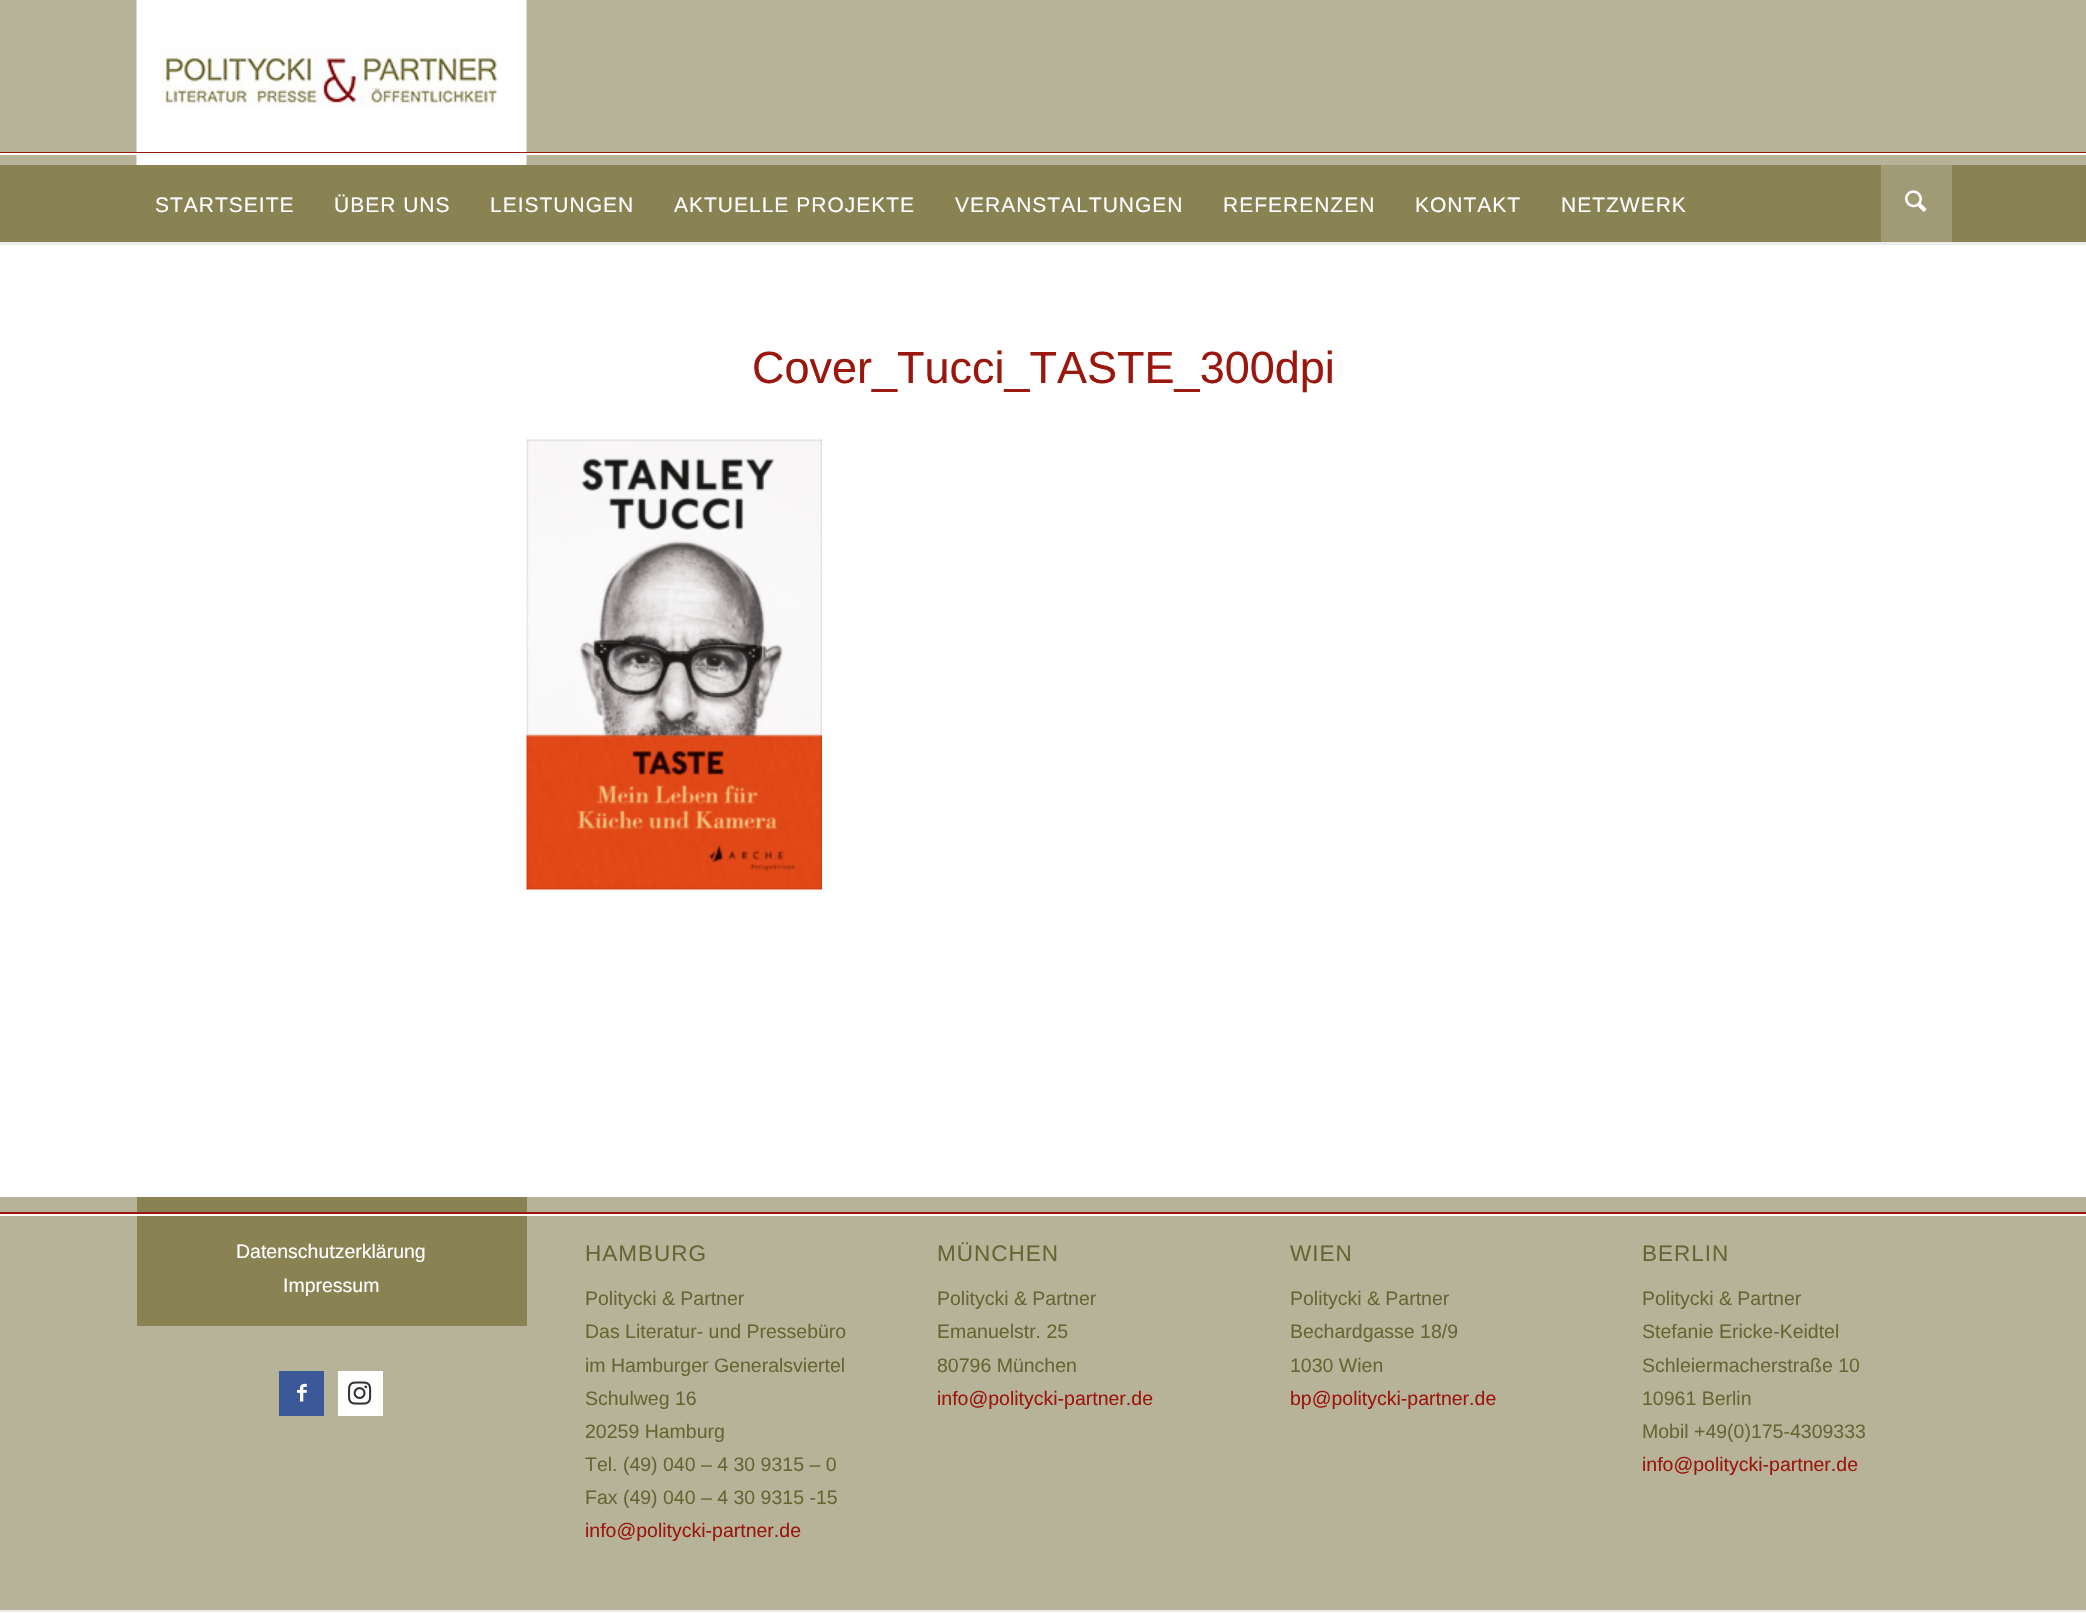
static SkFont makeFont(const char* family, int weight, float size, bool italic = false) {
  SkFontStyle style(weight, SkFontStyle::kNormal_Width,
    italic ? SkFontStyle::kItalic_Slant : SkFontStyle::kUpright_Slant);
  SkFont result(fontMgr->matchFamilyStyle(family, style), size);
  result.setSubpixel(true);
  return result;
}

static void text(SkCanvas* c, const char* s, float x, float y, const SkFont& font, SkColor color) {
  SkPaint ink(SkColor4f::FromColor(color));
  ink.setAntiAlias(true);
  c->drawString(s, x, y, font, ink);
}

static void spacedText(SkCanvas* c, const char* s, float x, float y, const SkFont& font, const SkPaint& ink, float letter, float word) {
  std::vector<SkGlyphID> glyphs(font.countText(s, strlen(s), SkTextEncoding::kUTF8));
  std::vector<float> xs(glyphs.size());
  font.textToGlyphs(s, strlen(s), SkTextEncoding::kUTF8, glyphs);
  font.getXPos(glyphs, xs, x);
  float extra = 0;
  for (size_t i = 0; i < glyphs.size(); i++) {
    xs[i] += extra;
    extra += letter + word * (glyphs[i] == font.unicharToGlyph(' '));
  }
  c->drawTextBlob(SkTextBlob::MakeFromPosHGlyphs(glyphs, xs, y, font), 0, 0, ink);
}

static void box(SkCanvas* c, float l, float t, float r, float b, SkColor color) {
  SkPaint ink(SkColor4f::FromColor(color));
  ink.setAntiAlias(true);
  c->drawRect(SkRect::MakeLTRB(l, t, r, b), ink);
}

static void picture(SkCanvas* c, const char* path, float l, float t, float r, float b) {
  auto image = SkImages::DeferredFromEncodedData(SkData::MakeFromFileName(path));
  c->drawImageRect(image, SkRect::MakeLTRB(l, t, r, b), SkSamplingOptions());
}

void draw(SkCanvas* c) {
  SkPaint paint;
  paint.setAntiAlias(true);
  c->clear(0xffb7b399);
  picture(c, "img_01.png", 136, 0, 527, 165);
  box(c, 0, 165, 2086, 242, 0xff898253);
  box(c, 1881, 165, 1952, 242, 0xffa19b75);
  box(c, 0, 152, 2086, 153, 0xff9b160c);
  box(c, 0, 153, 2086, 155, 0xffffffff);
  SkFont face1 = makeFont("Liberation Sans", 400, 21);
  paint.setColor(0xffffffff);
  spacedText(c, "STARTSEITE", 155, 212, face1, paint, 1, 0);
  spacedText(c, "ÜBER UNS", 334, 212, face1, paint, 1, 0);
  spacedText(c, "LEISTUNGEN", 490, 212, face1, paint, 1, 0);
  spacedText(c, "AKTUELLE PROJEKTE", 674, 212, face1, paint, 1, 0);
  spacedText(c, "VERANSTALTUNGEN", 955, 212, face1, paint, 1, 0);
  spacedText(c, "REFERENZEN", 1223, 212, face1, paint, 1, 0);
  spacedText(c, "KONTAKT", 1415, 212, face1, paint, 1, 0);
  spacedText(c, "NETZWERK", 1561, 212, face1, paint, 1, 0);
  picture(c, "img_02.png", 1905, 190, 1927, 212);
  box(c, 0, 245, 2086, 1197, 0xffffffff);
  box(c, 0, 242, 2086, 245, 0xffebebeb);
  SkFont face2 = makeFont("Liberation Sans", 400, 45);
  text(c, "Cover_Tucci_TASTE_300dpi", 752, 383, face2, 0xff9b160c);
  picture(c, "img_03.png", 526, 439, 822, 890);
  box(c, 137, 1197, 527, 1326, 0xff898253);
  box(c, 0, 1212, 2086, 1214, 0xff9b160c);
  box(c, 0, 1214, 2086, 1216, 0xffffffff);
  SkFont face3 = makeFont("Liberation Sans", 400, 19.5f);
  text(c, "Datenschutzerklärung", 236, 1258, face3, 0xffffffff);
  text(c, "Impressum", 283, 1292, face3, 0xffffffff);
  box(c, 279, 1371, 324, 1416, 0xff3b5998);
  picture(c, "img_04.png", 297, 1383, 307, 1402);
  box(c, 338, 1371, 383, 1416, 0xffffffff);
  picture(c, "img_05.png", 348, 1381, 372, 1405);
  SkFont face4 = makeFont("Liberation Sans", 400, 22.5f);
  paint.setColor(0xff676633);
  spacedText(c, "HAMBURG", 585, 1261, face4, paint, 1, 0);
  text(c, "Politycki & Partner", 585, 1305, face3, 0xff676633);
  text(c, "Das Literatur- und Pressebüro", 585, 1338, face3, 0xff676633);
  text(c, "im Hamburger Generalsviertel", 585, 1372, face3, 0xff676633);
  text(c, "Schulweg 16", 585, 1405, face3, 0xff676633);
  text(c, "20259 Hamburg", 585, 1438, face3, 0xff676633);
  text(c, "Tel. (49) 040 – 4 30 9315 – 0", 585, 1471, face3, 0xff676633);
  text(c, "Fax (49) 040 – 4 30 9315 -15", 585, 1504, face3, 0xff676633);
  text(c, "info@politycki-partner.de", 585, 1537, face3, 0xff9b160c);
  spacedText(c, "MÜNCHEN", 937, 1261, face4, paint, 1, 0);
  text(c, "Politycki & Partner", 937, 1305, face3, 0xff676633);
  text(c, "Emanuelstr. 25", 937, 1338, face3, 0xff676633);
  text(c, "80796 München", 937, 1372, face3, 0xff676633);
  text(c, "info@politycki-partner.de", 937, 1405, face3, 0xff9b160c);
  spacedText(c, "WIEN", 1290, 1261, face4, paint, 1, 0);
  text(c, "Politycki & Partner", 1290, 1305, face3, 0xff676633);
  text(c, "Bechardgasse 18/9", 1290, 1338, face3, 0xff676633);
  text(c, "1030 Wien", 1290, 1372, face3, 0xff676633);
  text(c, "bp@politycki-partner.de", 1290, 1405, face3, 0xff9b160c);
  spacedText(c, "BERLIN", 1642, 1261, face4, paint, 1, 0);
  text(c, "Politycki & Partner", 1642, 1305, face3, 0xff676633);
  text(c, "Stefanie Ericke-Keidtel", 1642, 1338, face3, 0xff676633);
  text(c, "Schleiermacherstraße 10", 1642, 1372, face3, 0xff676633);
  text(c, "10961 Berlin", 1642, 1405, face3, 0xff676633);
  text(c, "Mobil +49(0)175-4309333", 1642, 1438, face3, 0xff676633);
  text(c, "info@politycki-partner.de", 1642, 1471, face3, 0xff9b160c);
  box(c, 0, 1612, 2086, 1614, 0xffffffff);
  box(c, 0, 1610, 2086, 1612, 0xffebebeb);
}
